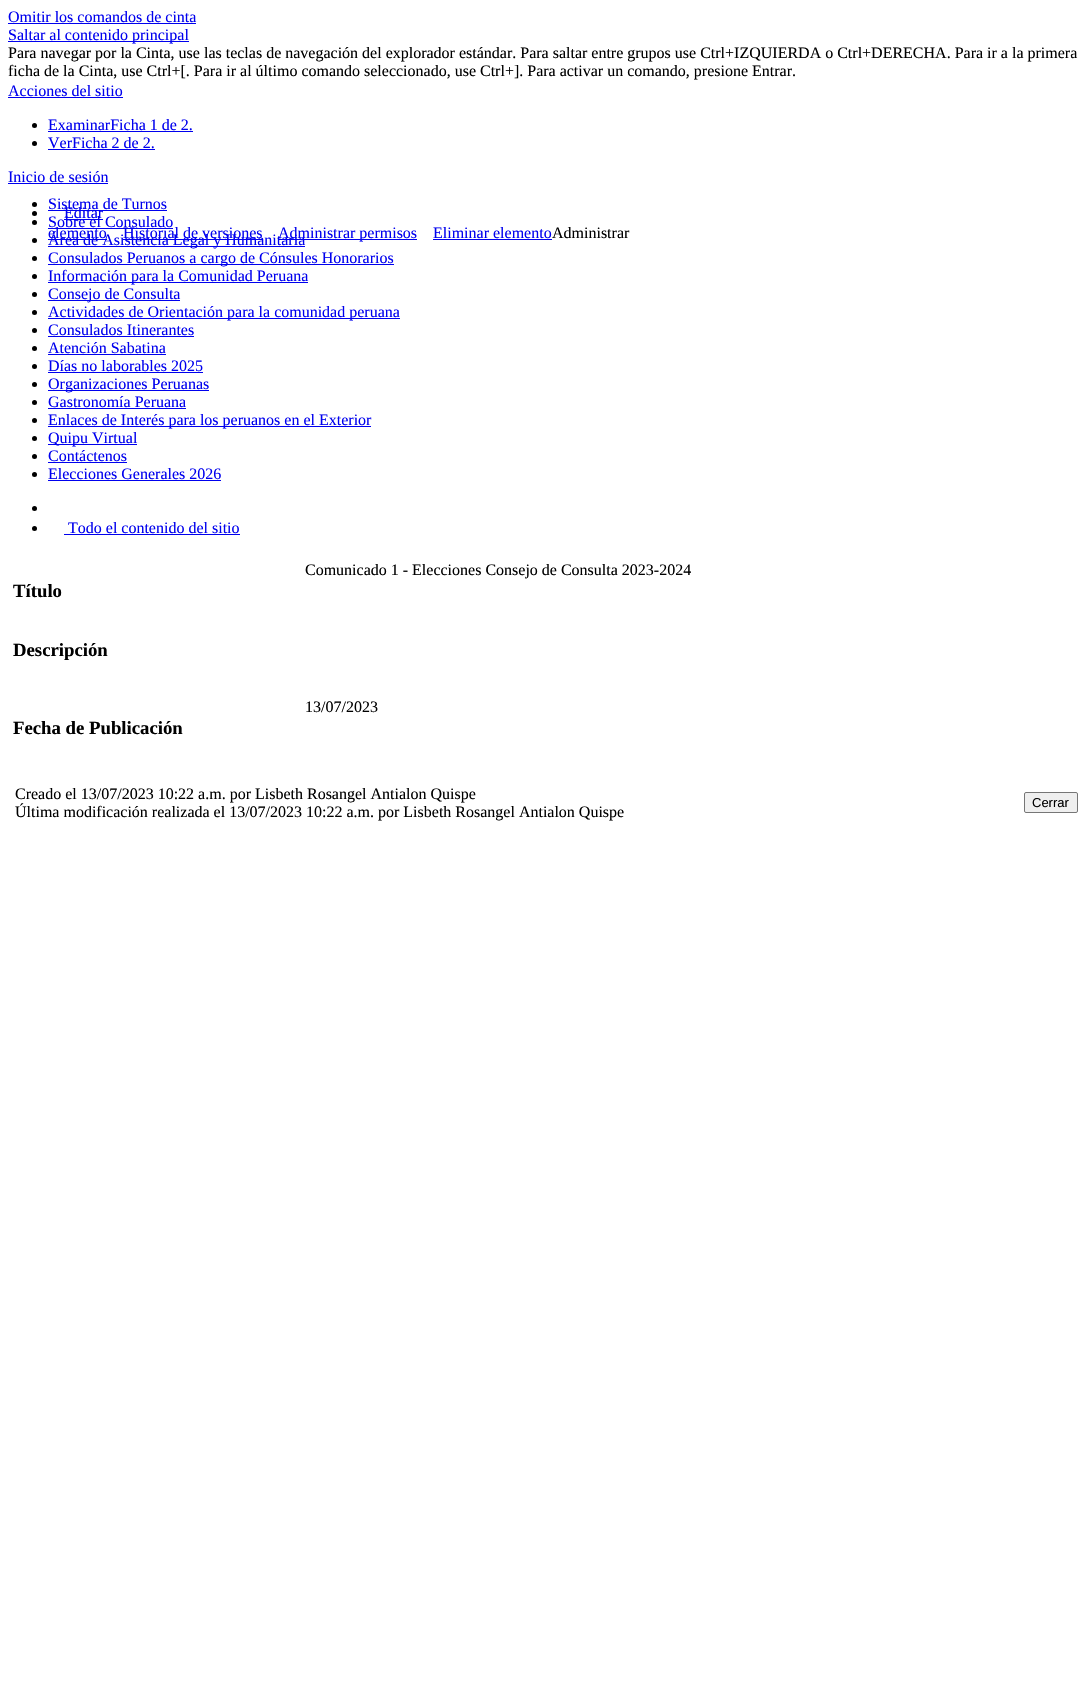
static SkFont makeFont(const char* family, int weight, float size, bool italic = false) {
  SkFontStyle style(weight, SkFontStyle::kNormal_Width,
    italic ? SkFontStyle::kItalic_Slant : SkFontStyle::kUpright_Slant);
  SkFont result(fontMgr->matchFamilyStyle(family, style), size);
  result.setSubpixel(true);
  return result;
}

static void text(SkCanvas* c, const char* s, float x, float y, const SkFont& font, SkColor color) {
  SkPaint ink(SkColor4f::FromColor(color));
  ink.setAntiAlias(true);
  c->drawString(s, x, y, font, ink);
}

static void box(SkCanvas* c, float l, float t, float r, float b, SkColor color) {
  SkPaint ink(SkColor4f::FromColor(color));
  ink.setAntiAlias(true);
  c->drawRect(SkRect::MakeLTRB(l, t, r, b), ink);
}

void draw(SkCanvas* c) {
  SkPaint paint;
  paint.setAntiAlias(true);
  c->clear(0xffffffff);
  SkFont face1 = makeFont("Liberation Serif", 400, 16);
  text(c, "Omitir los comandos de cinta", 8, 22, face1, 0xff0000ee);
  box(c, 8, 23, 196, 24, 0xff0000ee);
  box(c, 8, 41, 189, 42, 0xff0000ee);
  text(c, "Saltar al contenido principal", 8, 40, face1, 0xff0000ee);
  text(c, "Para navegar por la Cinta, use las teclas de navegación del explorador estándar. Para saltar entre grupos use Ctrl+IZQUIERDA o Ctrl+DERECHA. Para ir a la primera", 8, 58, face1, 0xff000000);
  text(c, "ficha de la Cinta, use Ctrl+[. Para ir al último comando seleccionado, use Ctrl+]. Para activar un comando, presione Entrar.", 8, 76, face1, 0xff000000);
  text(c, "Acciones del sitio", 8, 96, face1, 0xff0000ee);
  box(c, 8, 97, 123, 98, 0xff0000ee);
  paint.setColor(0xff000000);
  c->drawCircle(34.5f, 125.5f, 2.5f, paint);
  text(c, "ExaminarFicha 1 de 2.", 48, 130, face1, 0xff0000ee);
  box(c, 48, 131, 193, 132, 0xff0000ee);
  c->drawCircle(34.5f, 143.5f, 2.5f, paint);
  text(c, "VerFicha 2 de 2.", 48, 148, face1, 0xff0000ee);
  box(c, 48, 149, 155, 150, 0xff0000ee);
  text(c, "Inicio de sesión", 8, 182, face1, 0xff0000ee);
  box(c, 8, 183, 108, 184, 0xff0000ee);
  c->drawCircle(34.5f, 213.5f, 2.5f, paint);
  text(c, "Editar", 64, 218, face1, 0xff0000ee);
  box(c, 64, 219, 103, 220, 0xff0000ee);
  text(c, "elemento", 48, 238, face1, 0xff0000ee);
  box(c, 48, 239, 107, 240, 0xff0000ee);
  text(c, "Historial de versiones", 123, 238, face1, 0xff0000ee);
  box(c, 123, 239, 262, 240, 0xff0000ee);
  box(c, 278, 239, 417, 240, 0xff0000ee);
  text(c, "Administrar permisos", 278, 238, face1, 0xff0000ee);
  text(c, "Eliminar elemento", 433, 238, face1, 0xff0000ee);
  box(c, 433, 239, 552, 240, 0xff0000ee);
  text(c, "Administrar", 552, 238, face1, 0xff000000);
  c->drawCircle(34.5f, 204.5f, 2.5f, paint);
  text(c, "Sistema de Turnos", 48, 209, face1, 0xff0000ee);
  box(c, 48, 210, 167, 211, 0xff0000ee);
  c->drawCircle(34.5f, 222.5f, 2.5f, paint);
  text(c, "Sobre el Consulado", 48, 227, face1, 0xff0000ee);
  box(c, 48, 228, 173, 229, 0xff0000ee);
  c->drawCircle(34.5f, 240.5f, 2.5f, paint);
  box(c, 48, 246, 305, 247, 0xff0000ee);
  text(c, "Área de Asistencia Legal y Humanitaria", 48, 245, face1, 0xff0000ee);
  c->drawCircle(34.5f, 258.5f, 2.5f, paint);
  box(c, 48, 264, 394, 265, 0xff0000ee);
  text(c, "Consulados Peruanos a cargo de Cónsules Honorarios", 48, 263, face1, 0xff0000ee);
  c->drawCircle(34.5f, 276.5f, 2.5f, paint);
  box(c, 48, 282, 308, 283, 0xff0000ee);
  text(c, "Información para la Comunidad Peruana", 48, 281, face1, 0xff0000ee);
  c->drawCircle(34.5f, 294.5f, 2.5f, paint);
  box(c, 48, 300, 180, 301, 0xff0000ee);
  text(c, "Consejo de Consulta", 48, 299, face1, 0xff0000ee);
  c->drawCircle(34.5f, 312.5f, 2.5f, paint);
  box(c, 48, 318, 400, 319, 0xff0000ee);
  text(c, "Actividades de Orientación para la comunidad peruana", 48, 317, face1, 0xff0000ee);
  c->drawCircle(34.5f, 330.5f, 2.5f, paint);
  text(c, "Consulados Itinerantes", 48, 335, face1, 0xff0000ee);
  box(c, 48, 336, 194, 337, 0xff0000ee);
  c->drawCircle(34.5f, 348.5f, 2.5f, paint);
  text(c, "Atención Sabatina", 48, 353, face1, 0xff0000ee);
  box(c, 48, 354, 166, 355, 0xff0000ee);
  c->drawCircle(34.5f, 366.5f, 2.5f, paint);
  text(c, "Días no laborables 2025", 48, 371, face1, 0xff0000ee);
  box(c, 48, 372, 203, 373, 0xff0000ee);
  c->drawCircle(34.5f, 384.5f, 2.5f, paint);
  box(c, 48, 390, 209, 391, 0xff0000ee);
  text(c, "Organizaciones Peruanas", 48, 389, face1, 0xff0000ee);
  c->drawCircle(34.5f, 402.5f, 2.5f, paint);
  text(c, "Gastronomía Peruana", 48, 407, face1, 0xff0000ee);
  box(c, 48, 408, 186, 409, 0xff0000ee);
  c->drawCircle(34.5f, 420.5f, 2.5f, paint);
  box(c, 48, 426, 371, 427, 0xff0000ee);
  text(c, "Enlaces de Interés para los peruanos en el Exterior", 48, 425, face1, 0xff0000ee);
  c->drawCircle(34.5f, 438.5f, 2.5f, paint);
  box(c, 48, 444, 137, 445, 0xff0000ee);
  text(c, "Quipu Virtual", 48, 443, face1, 0xff0000ee);
  c->drawCircle(34.5f, 456.5f, 2.5f, paint);
  text(c, "Contáctenos", 48, 461, face1, 0xff0000ee);
  box(c, 48, 462, 127, 463, 0xff0000ee);
  c->drawCircle(34.5f, 474.5f, 2.5f, paint);
  text(c, "Elecciones Generales 2026", 48, 479, face1, 0xff0000ee);
  box(c, 48, 480, 221, 481, 0xff0000ee);
  c->drawCircle(34.5f, 508.5f, 2.5f, paint);
  c->drawCircle(34.5f, 528.5f, 2.5f, paint);
  text(c, "Todo el contenido del sitio", 68, 533, face1, 0xff0000ee);
  box(c, 64, 534, 240, 535, 0xff0000ee);
  text(c, "Comunicado 1 - Elecciones Consejo de Consulta 2023-2024", 305, 575, face1, 0xff000000);
  SkFont face2 = makeFont("Liberation Serif", 700, 18.75f);
  text(c, "Título", 13, 597, face2, 0xff000000);
  text(c, "Descripción", 13, 656, face2, 0xff000000);
  text(c, "13/07/2023", 305, 712, face1, 0xff000000);
  text(c, "Fecha de Publicación", 13, 734, face2, 0xff000000);
  text(c, "Creado el 13/07/2023 10:22 a.m. por Lisbeth Rosangel Antialon Quispe", 15, 799, face1, 0xff000000);
  text(c, "Última modificación realizada el 13/07/2023 10:22 a.m. por Lisbeth Rosangel Antialon Quispe", 15, 817, face1, 0xff000000);
  paint.setColor(0xffefefef);
  c->drawRoundRect(SkRect::MakeLTRB(1024.5f, 792.5f, 1077.5f, 812.5f), 1.5f, 1.5f, paint);
  paint.setStyle(SkPaint::kStroke_Style);
  paint.setStrokeWidth(1);
  paint.setColor(0xff767676);
  c->drawRoundRect(SkRect::MakeLTRB(1024.5f, 792.5f, 1077.5f, 812.5f), 1.5f, 1.5f, paint);
  SkFont face3 = makeFont("Liberation Sans", 400, 13);
  text(c, "Cerrar", 1032, 807, face3, 0xff000000);
}
